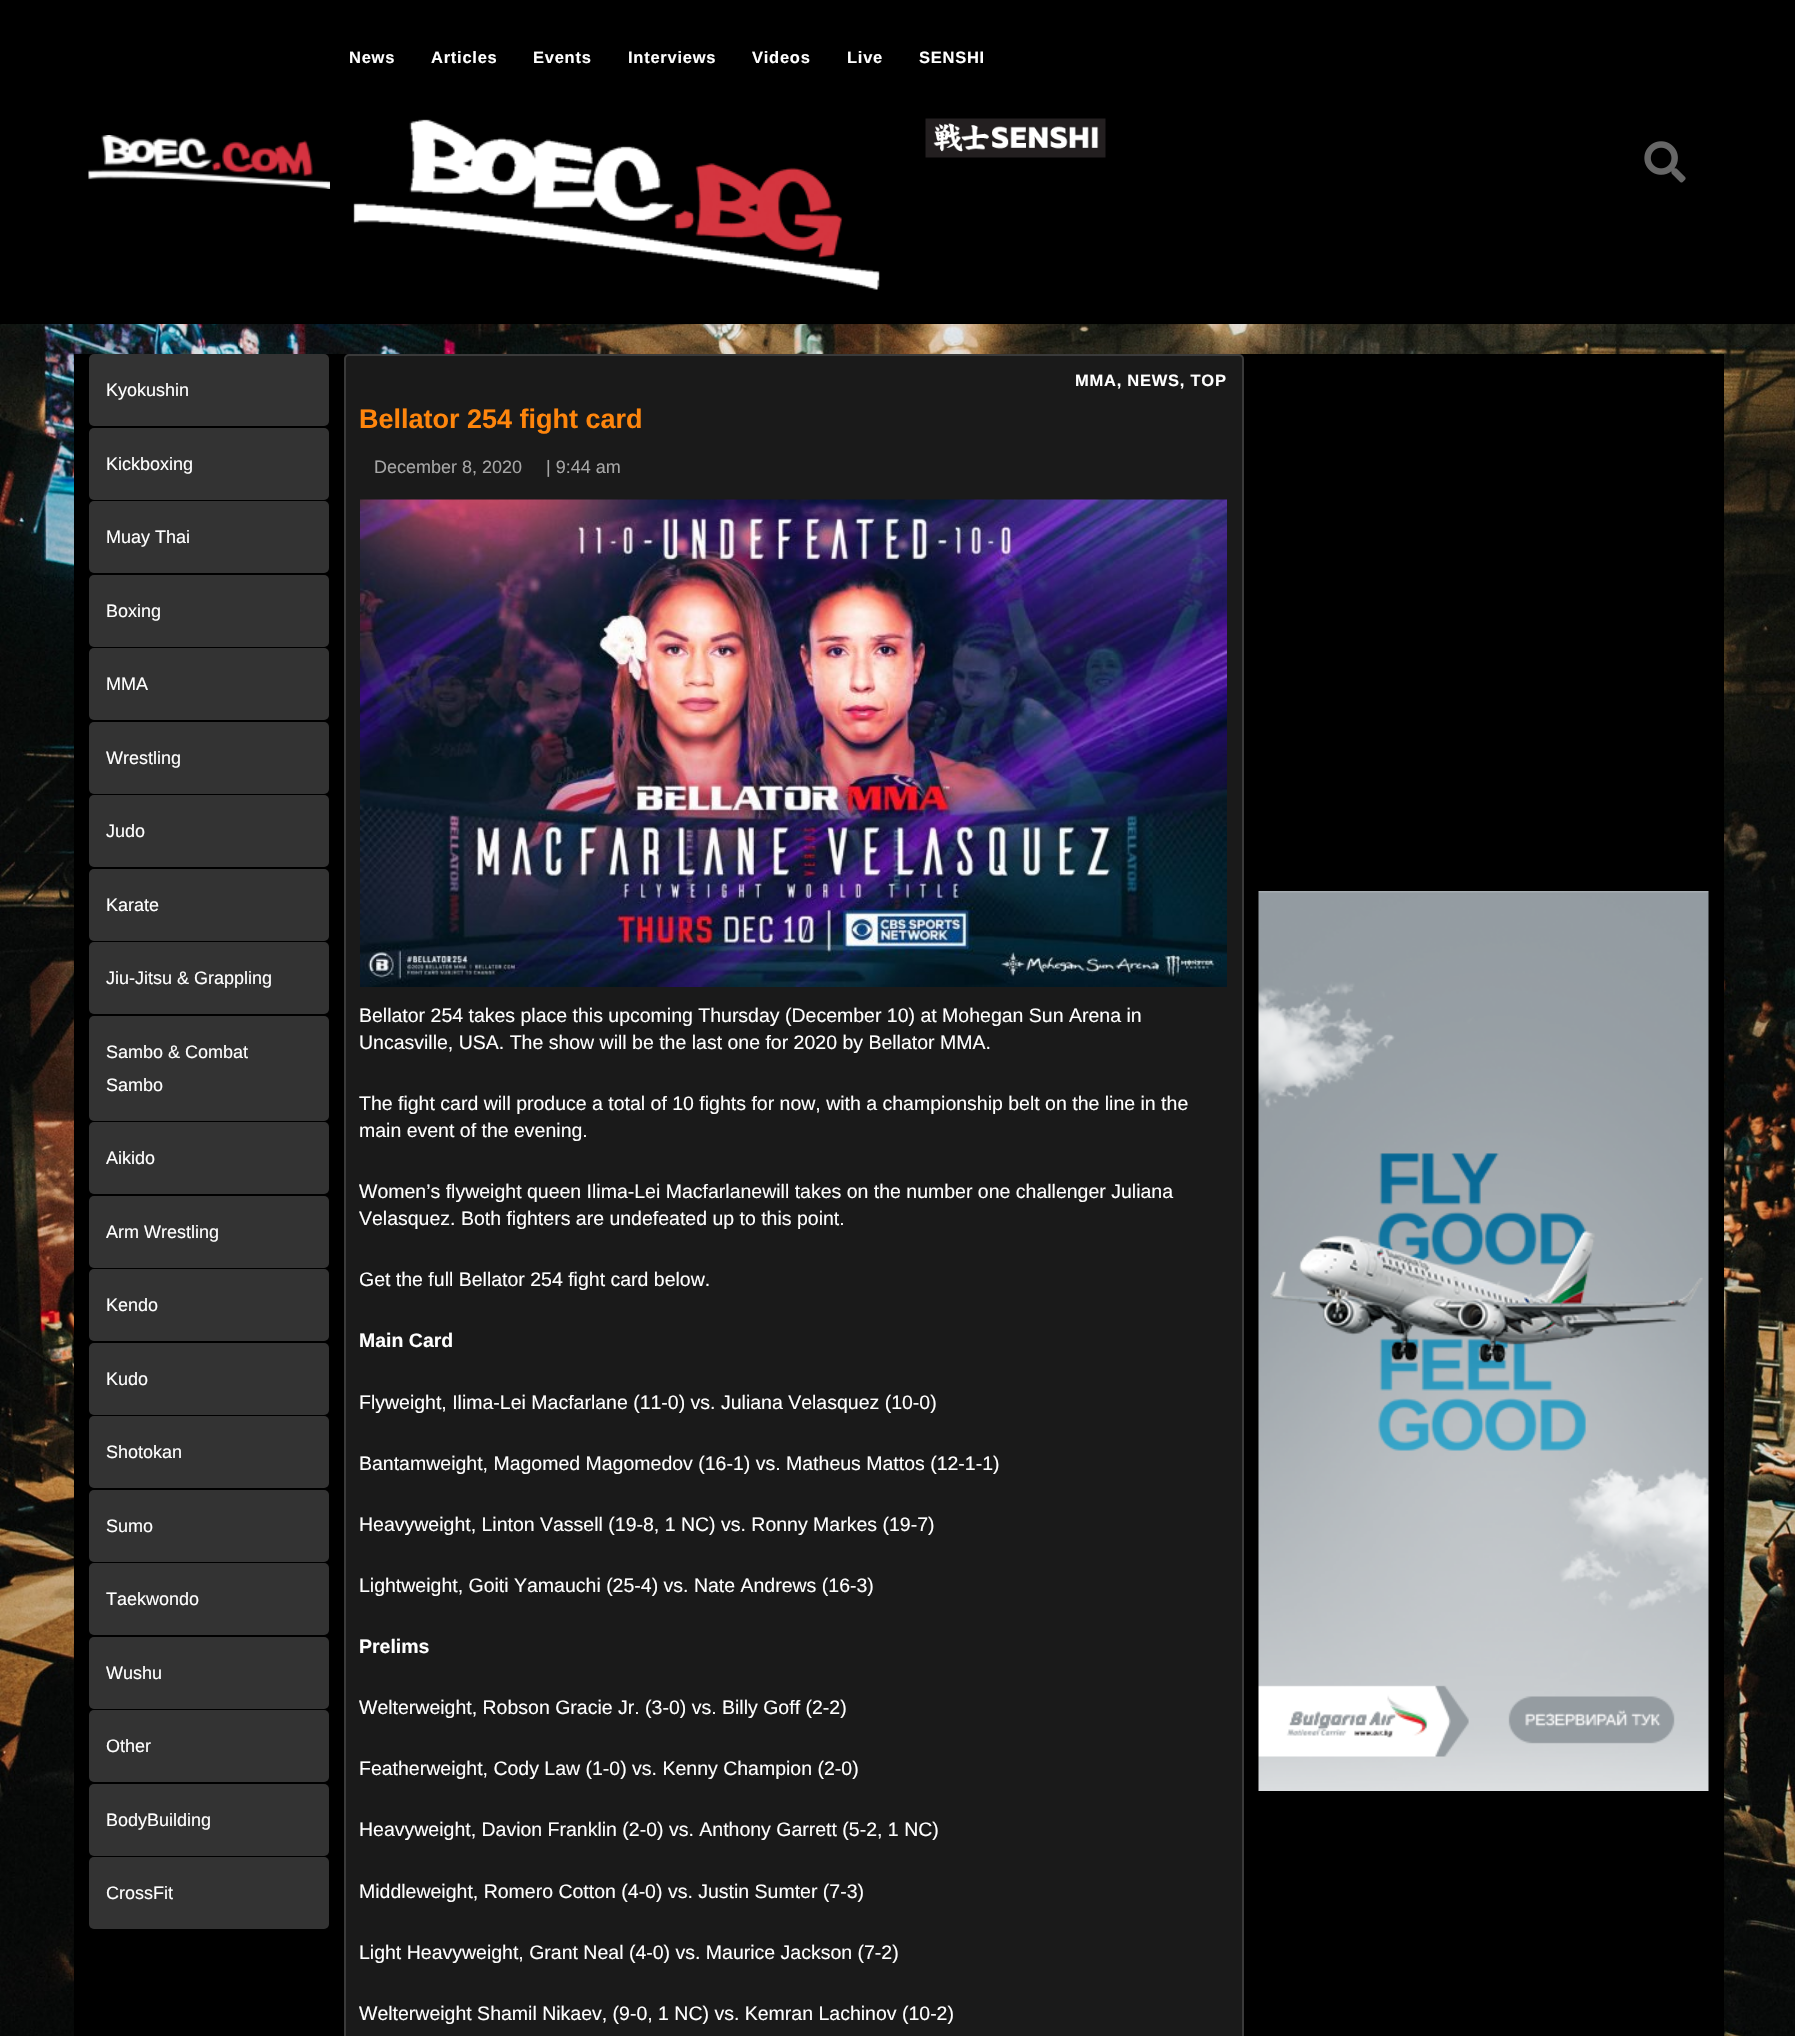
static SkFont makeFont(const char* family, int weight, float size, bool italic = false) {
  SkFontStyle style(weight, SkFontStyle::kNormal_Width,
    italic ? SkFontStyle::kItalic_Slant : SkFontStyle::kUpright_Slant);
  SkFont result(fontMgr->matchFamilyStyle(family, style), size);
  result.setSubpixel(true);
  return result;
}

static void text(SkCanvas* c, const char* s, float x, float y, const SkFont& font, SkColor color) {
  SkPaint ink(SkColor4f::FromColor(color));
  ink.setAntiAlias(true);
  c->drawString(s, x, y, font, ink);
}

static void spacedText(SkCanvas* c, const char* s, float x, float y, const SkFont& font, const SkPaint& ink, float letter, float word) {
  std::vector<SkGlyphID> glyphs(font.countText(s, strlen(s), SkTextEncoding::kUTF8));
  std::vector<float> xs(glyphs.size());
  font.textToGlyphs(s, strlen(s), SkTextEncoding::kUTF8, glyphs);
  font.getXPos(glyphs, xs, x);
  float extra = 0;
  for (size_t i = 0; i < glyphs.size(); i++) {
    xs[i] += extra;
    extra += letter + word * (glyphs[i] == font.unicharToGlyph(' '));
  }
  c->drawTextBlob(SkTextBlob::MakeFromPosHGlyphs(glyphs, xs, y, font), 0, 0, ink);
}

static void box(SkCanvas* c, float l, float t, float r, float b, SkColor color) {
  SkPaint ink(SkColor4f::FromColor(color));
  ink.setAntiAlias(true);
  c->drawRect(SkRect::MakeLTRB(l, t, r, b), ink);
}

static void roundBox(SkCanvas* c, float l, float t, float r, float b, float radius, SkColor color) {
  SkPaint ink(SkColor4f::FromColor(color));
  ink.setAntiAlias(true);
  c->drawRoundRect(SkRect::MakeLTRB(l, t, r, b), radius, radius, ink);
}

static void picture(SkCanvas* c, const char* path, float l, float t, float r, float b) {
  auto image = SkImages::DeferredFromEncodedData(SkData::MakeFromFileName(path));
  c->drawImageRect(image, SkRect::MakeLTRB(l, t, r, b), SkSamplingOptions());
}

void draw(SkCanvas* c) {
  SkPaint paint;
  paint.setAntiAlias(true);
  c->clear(0xffffffff);
  picture(c, "img_01.png", 0, 324, 1795, 2036);
  box(c, 0, 0, 1795, 324, 0xff000000);
  SkFont face1 = makeFont("Liberation Sans", 700, 16.5f);
  paint.setColor(0xffffffff);
  spacedText(c, "News", 349, 63, face1, paint, 0.75f, 0);
  spacedText(c, "Articles", 431, 63, face1, paint, 0.75f, 0);
  spacedText(c, "Events", 533, 63, face1, paint, 0.75f, 0);
  spacedText(c, "Interviews", 628, 63, face1, paint, 0.75f, 0);
  spacedText(c, "Videos", 752, 63, face1, paint, 0.75f, 0);
  spacedText(c, "Live", 847, 63, face1, paint, 0.75f, 0);
  spacedText(c, "SENSHI", 919, 63, face1, paint, 0.75f, 0);
  picture(c, "img_02.png", 353, 119, 880, 290);
  picture(c, "img_03.png", 925, 118, 1106, 158);
  picture(c, "img_04.png", 88, 135, 330, 189);
  picture(c, "img_05.png", 1644, 141, 1686, 183);
  box(c, 74, 354, 1724, 2036, 0xff000000);
  roundBox(c, 89, 354, 329, 426, 5, 0xff333333);
  SkFont face2 = makeFont("Liberation Sans", 400, 18);
  text(c, "Kyokushin", 106, 396, face2, 0xffffffff);
  roundBox(c, 89, 428, 329, 500, 5, 0xff333333);
  text(c, "Kickboxing", 106, 470, face2, 0xffffffff);
  roundBox(c, 89, 501, 329, 573, 5, 0xff333333);
  text(c, "Muay Thai", 106, 543, face2, 0xffffffff);
  roundBox(c, 89, 575, 329, 647, 5, 0xff333333);
  text(c, "Boxing", 106, 617, face2, 0xffffffff);
  roundBox(c, 89, 648, 329, 720, 5, 0xff333333);
  text(c, "MMA", 106, 690, face2, 0xffffffff);
  roundBox(c, 89, 722, 329, 794, 5, 0xff333333);
  text(c, "Wrestling", 106, 764, face2, 0xffffffff);
  roundBox(c, 89, 795, 329, 867, 5, 0xff333333);
  text(c, "Judo", 106, 837, face2, 0xffffffff);
  roundBox(c, 89, 869, 329, 941, 5, 0xff333333);
  text(c, "Karate", 106, 911, face2, 0xffffffff);
  roundBox(c, 89, 942, 329, 1014, 5, 0xff333333);
  text(c, "Jiu-Jitsu & Grappling", 106, 984, face2, 0xffffffff);
  roundBox(c, 89, 1016, 329, 1121, 5, 0xff333333);
  text(c, "Sambo & Combat", 106, 1058, face2, 0xffffffff);
  text(c, "Sambo", 106, 1091, face2, 0xffffffff);
  roundBox(c, 89, 1122, 329, 1194, 5, 0xff333333);
  text(c, "Aikido", 106, 1164, face2, 0xffffffff);
  roundBox(c, 89, 1196, 329, 1268, 5, 0xff333333);
  text(c, "Arm Wrestling", 106, 1238, face2, 0xffffffff);
  roundBox(c, 89, 1269, 329, 1341, 5, 0xff333333);
  text(c, "Kendo", 106, 1311, face2, 0xffffffff);
  roundBox(c, 89, 1343, 329, 1415, 5, 0xff333333);
  text(c, "Kudo", 106, 1385, face2, 0xffffffff);
  roundBox(c, 89, 1416, 329, 1488, 5, 0xff333333);
  text(c, "Shotokan", 106, 1458, face2, 0xffffffff);
  roundBox(c, 89, 1490, 329, 1562, 5, 0xff333333);
  text(c, "Sumo", 106, 1532, face2, 0xffffffff);
  roundBox(c, 89, 1563, 329, 1635, 5, 0xff333333);
  text(c, "Taekwondo", 106, 1605, face2, 0xffffffff);
  roundBox(c, 89, 1637, 329, 1709, 5, 0xff333333);
  text(c, "Wushu", 106, 1679, face2, 0xffffffff);
  roundBox(c, 89, 1710, 329, 1782, 5, 0xff333333);
  text(c, "Other", 106, 1752, face2, 0xffffffff);
  roundBox(c, 89, 1784, 329, 1856, 5, 0xff333333);
  text(c, "BodyBuilding", 106, 1826, face2, 0xffffffff);
  roundBox(c, 89, 1857, 329, 1929, 5, 0xff333333);
  text(c, "CrossFit", 106, 1899, face2, 0xffffffff);
  paint.setColor(0xff1a1a1a);
  c->drawRoundRect(SkRect::MakeLTRB(345, 355, 1243, 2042), 4, 4, paint);
  paint.setStyle(SkPaint::kStroke_Style);
  paint.setStrokeWidth(2);
  paint.setColor(0xff3a3a3a);
  c->drawRoundRect(SkRect::MakeLTRB(345, 355, 1243, 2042), 4, 4, paint);
  paint.setStyle(SkPaint::kFill_Style);
  paint.setColor(0xffffffff);
  spacedText(c, "MMA, NEWS, TOP", 1075, 386, face1, paint, 0.75f, 0);
  SkFont face3 = makeFont("Liberation Sans", 700, 27);
  text(c, "Bellator 254 fight card", 359, 428, face3, 0xfffe850c);
  text(c, "December 8, 2020", 374, 473, face2, 0xffa6a6a6);
  text(c, "| 9:44 am", 546, 473, face2, 0xffa6a6a6);
  picture(c, "img_06.png", 360, 499, 1227, 987);
  SkFont face4 = makeFont("Liberation Sans", 400, 19.5f);
  text(c, "Bellator 254 takes place this upcoming Thursday (December 10) at Mohegan Sun Arena in", 359, 1022, face4, 0xffffffff);
  text(c, "Uncasville, USA. The show will be the last one for 2020 by Bellator MMA.", 359, 1049, face4, 0xffffffff);
  text(c, "The fight card will produce a total of 10 fights for now, with a championship belt on the line in the", 359, 1110, face4, 0xffffffff);
  text(c, "main event of the evening.", 359, 1137, face4, 0xffffffff);
  text(c, "Women’s flyweight queen Ilima-Lei Macfarlanewill takes on the number one challenger Juliana", 359, 1198, face4, 0xffffffff);
  text(c, "Velasquez. Both fighters are undefeated up to this point.", 359, 1225, face4, 0xffffffff);
  text(c, "Get the full Bellator 254 fight card below.", 359, 1286, face4, 0xffffffff);
  SkFont face5 = makeFont("Liberation Sans", 700, 19.5f);
  text(c, "Main Card", 359, 1347, face5, 0xffffffff);
  text(c, "Flyweight, Ilima-Lei Macfarlane (11-0) vs. Juliana Velasquez (10-0)", 359, 1409, face4, 0xffffffff);
  text(c, "Bantamweight, Magomed Magomedov (16-1) vs. Matheus Mattos (12-1-1)", 359, 1470, face4, 0xffffffff);
  text(c, "Heavyweight, Linton Vassell (19-8, 1 NC) vs. Ronny Markes (19-7)", 359, 1531, face4, 0xffffffff);
  text(c, "Lightweight, Goiti Yamauchi (25-4) vs. Nate Andrews (16-3)", 359, 1592, face4, 0xffffffff);
  text(c, "Prelims", 359, 1653, face5, 0xffffffff);
  text(c, "Welterweight, Robson Gracie Jr. (3-0) vs. Billy Goff (2-2)", 359, 1714, face4, 0xffffffff);
  text(c, "Featherweight, Cody Law (1-0) vs. Kenny Champion (2-0)", 359, 1775, face4, 0xffffffff);
  text(c, "Heavyweight, Davion Franklin (2-0) vs. Anthony Garrett (5-2, 1 NC)", 359, 1836, face4, 0xffffffff);
  text(c, "Middleweight, Romero Cotton (4-0) vs. Justin Sumter (7-3)", 359, 1898, face4, 0xffffffff);
  text(c, "Light Heavyweight, Grant Neal (4-0) vs. Maurice Jackson (7-2)", 359, 1959, face4, 0xffffffff);
  text(c, "Welterweight Shamil Nikaev, (9-0, 1 NC) vs. Kemran Lachinov (10-2)", 359, 2020, face4, 0xffffffff);
  picture(c, "img_07.png", 1258, 891, 1709, 1791);
}
